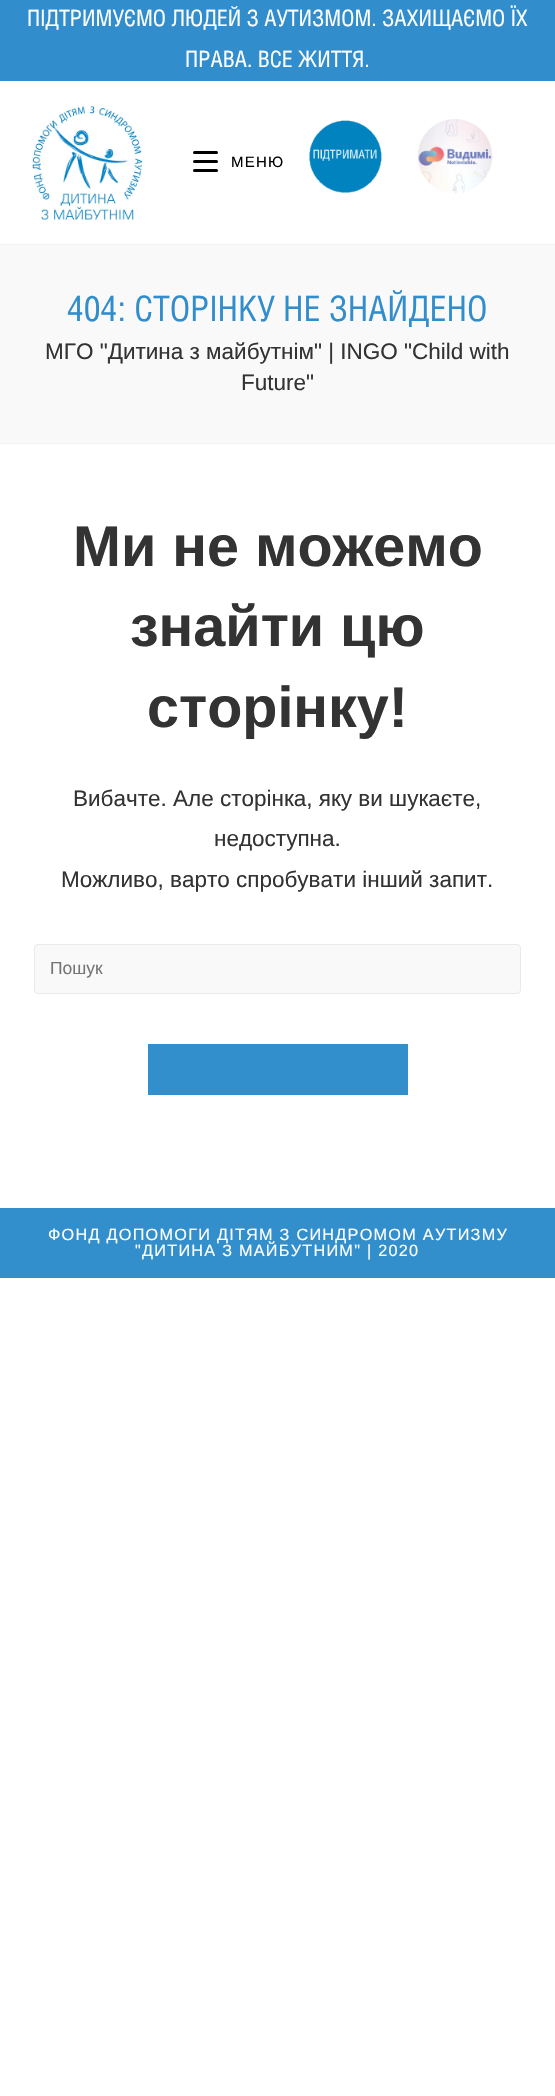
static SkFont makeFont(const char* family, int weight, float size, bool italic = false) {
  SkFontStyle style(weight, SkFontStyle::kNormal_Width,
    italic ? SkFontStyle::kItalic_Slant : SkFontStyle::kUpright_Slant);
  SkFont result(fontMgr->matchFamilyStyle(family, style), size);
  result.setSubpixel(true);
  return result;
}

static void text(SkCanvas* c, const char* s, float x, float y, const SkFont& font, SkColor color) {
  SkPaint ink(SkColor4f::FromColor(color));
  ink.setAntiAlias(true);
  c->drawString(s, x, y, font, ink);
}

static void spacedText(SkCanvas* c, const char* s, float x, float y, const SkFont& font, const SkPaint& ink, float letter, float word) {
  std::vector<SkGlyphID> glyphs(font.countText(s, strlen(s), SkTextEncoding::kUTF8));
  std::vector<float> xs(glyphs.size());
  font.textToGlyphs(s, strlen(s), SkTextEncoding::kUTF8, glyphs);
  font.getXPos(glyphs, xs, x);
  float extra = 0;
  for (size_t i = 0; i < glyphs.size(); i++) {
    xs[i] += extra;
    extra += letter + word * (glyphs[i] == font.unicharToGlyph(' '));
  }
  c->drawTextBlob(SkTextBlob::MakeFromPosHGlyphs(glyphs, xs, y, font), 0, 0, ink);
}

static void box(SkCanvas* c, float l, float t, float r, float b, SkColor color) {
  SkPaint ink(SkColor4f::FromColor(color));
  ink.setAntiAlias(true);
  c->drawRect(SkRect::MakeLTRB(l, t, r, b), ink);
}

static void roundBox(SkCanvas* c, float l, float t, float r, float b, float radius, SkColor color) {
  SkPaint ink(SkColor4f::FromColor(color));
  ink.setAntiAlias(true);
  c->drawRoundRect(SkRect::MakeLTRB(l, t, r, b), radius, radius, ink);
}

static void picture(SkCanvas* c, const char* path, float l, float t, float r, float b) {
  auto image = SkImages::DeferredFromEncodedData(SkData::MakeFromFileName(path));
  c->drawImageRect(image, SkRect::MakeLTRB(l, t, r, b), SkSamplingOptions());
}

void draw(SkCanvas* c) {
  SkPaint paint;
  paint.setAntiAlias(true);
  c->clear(0xffffffff);
  box(c, 0, 244, 555, 245, 0xfff1f1f1);
  box(c, 0, 0, 555, 81, 0xff318dcb);
  SkFont face1 = makeFont("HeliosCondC", 400, 22.5f);
  text(c, "ПІДТРИМУЄМО ЛЮДЕЙ З АУТИЗМОМ. ЗАХИЩАЄМО ЇХ", 27, 26, face1, 0xffffffff);
  text(c, "ПРАВА. ВСЕ ЖИТТЯ.", 185, 67, face1, 0xffffffff);
  picture(c, "img_01.png", 32, 105, 143, 220);
  roundBox(c, 193, 160, 218, 163, 1.5f, 0xff000000);
  roundBox(c, 193, 151, 218, 154, 1.5f, 0xff000000);
  roundBox(c, 193, 169, 218, 172, 1.5f, 0xff000000);
  SkFont face2 = makeFont("Liberation Sans", 400, 15);
  paint.setColor(0xff000000);
  spacedText(c, "МЕНЮ", 231, 167, face2, paint, 1.25f, 0);
  picture(c, "img_02.png", 309, 120, 382, 193);
  picture(c, "img_03.png", 417, 119, 493, 194);
  box(c, 0, 245, 555, 443, 0xfff9f9f9);
  box(c, 0, 443, 555, 444, 0xfff1f1f1);
  SkFont face3 = makeFont("HeliosCondC", 400, 35);
  text(c, "404: СТОРІНКУ НЕ ЗНАЙДЕНО", 67, 321, face3, 0xff318dcb);
  SkFont face4 = makeFont("Liberation Sans", 400, 22.5f);
  text(c, "МГО \"Дитина з майбутнім\" | INGO \"Child with", 45, 359, face4, 0xff333333);
  text(c, "Future\"", 241, 390, face4, 0xff333333);
  SkFont face5 = makeFont("Liberation Sans", 700, 57.5f);
  text(c, "Ми не можемо", 73, 566, face5, 0xff333333);
  text(c, "знайти цю", 130, 646, face5, 0xff333333);
  text(c, "сторінку!", 147, 727, face5, 0xff333333);
  text(c, "Вибачте. Але сторінка, яку ви шукаєте,", 73, 806, face4, 0xff333333);
  text(c, "недоступна.", 214, 846, face4, 0xff333333);
  text(c, "Можливо, варто спробувати інший запит.", 61, 887, face4, 0xff333333);
  paint.setColor(0xfff9f9f9);
  c->drawRoundRect(SkRect::MakeLTRB(34.5f, 944.5f, 520.5f, 993.5f), 3.5f, 3.5f, paint);
  paint.setStyle(SkPaint::kStroke_Style);
  paint.setStrokeWidth(1);
  paint.setColor(0xffeaeaea);
  c->drawRoundRect(SkRect::MakeLTRB(34.5f, 944.5f, 520.5f, 993.5f), 3.5f, 3.5f, paint);
  SkFont face6 = makeFont("Liberation Sans", 400, 17.5f);
  text(c, "Пошук", 50, 974, face6, 0xff757575);
  box(c, 148, 1044, 408, 1095, 0xff338fcc);
  box(c, 0, 1208, 555, 1278, 0xff338fcc);
  SkFont face7 = makeFont("Liberation Sans", 400, 16.25f);
  paint.setStyle(SkPaint::kFill_Style);
  paint.setColor(0xffffffff);
  spacedText(c, "ФОНД ДОПОМОГИ ДІТЯМ З СИНДРОМОМ АУТИЗМУ", 48, 1240, face7, paint, 1.25f, 0);
  spacedText(c, "\"ДИТИНА З МАЙБУТНИМ\" | 2020", 135, 1256, face7, paint, 1.25f, 0);
}
